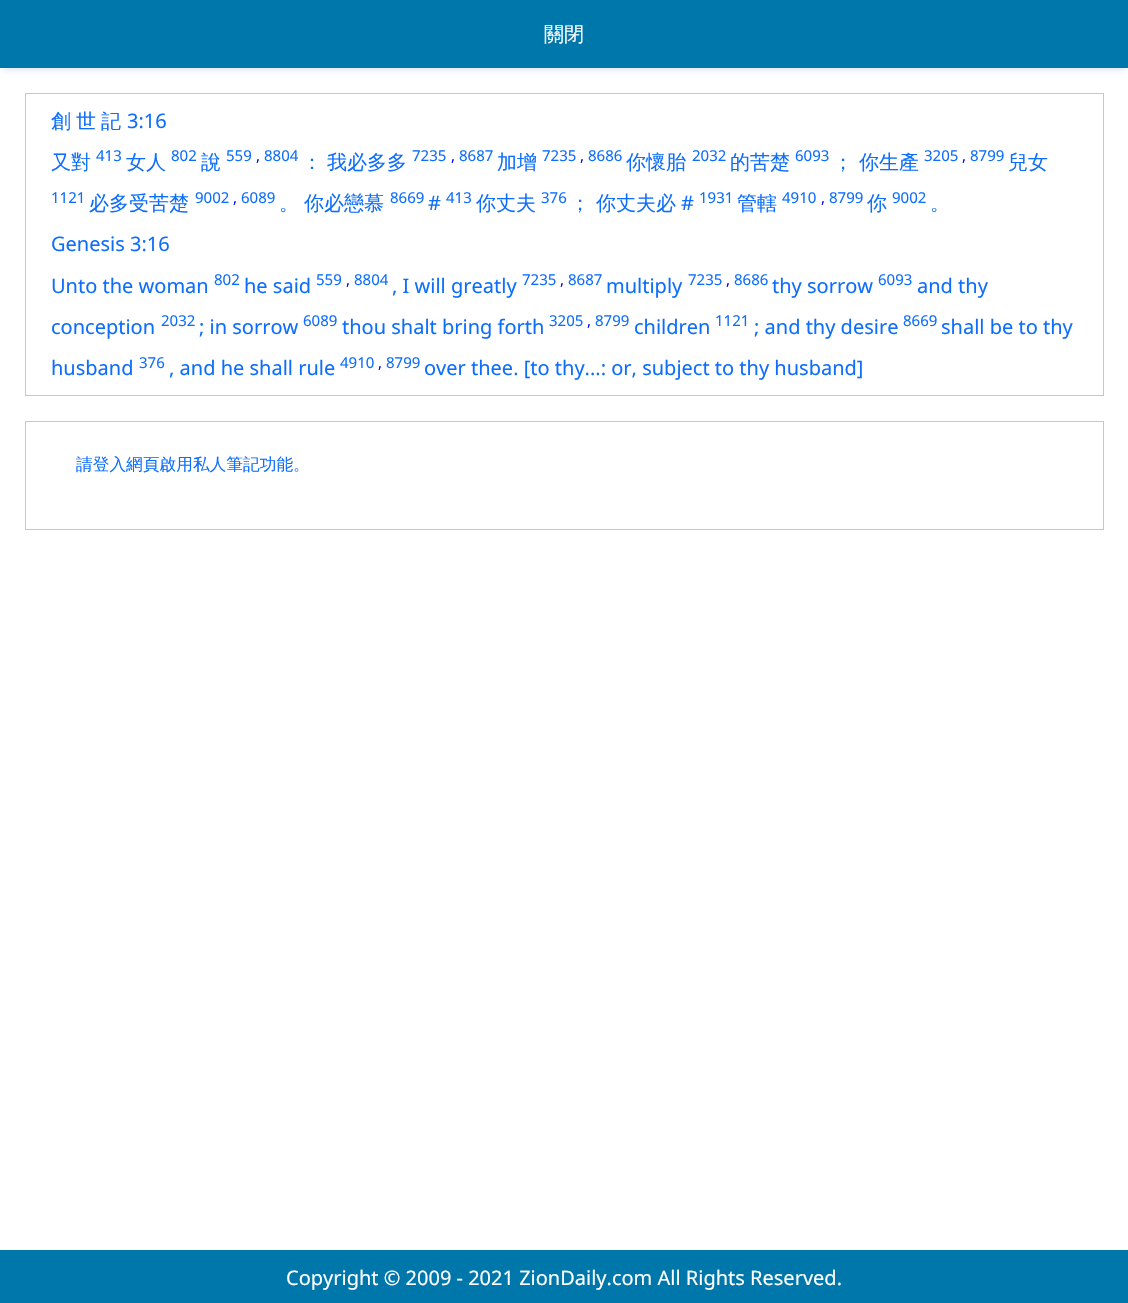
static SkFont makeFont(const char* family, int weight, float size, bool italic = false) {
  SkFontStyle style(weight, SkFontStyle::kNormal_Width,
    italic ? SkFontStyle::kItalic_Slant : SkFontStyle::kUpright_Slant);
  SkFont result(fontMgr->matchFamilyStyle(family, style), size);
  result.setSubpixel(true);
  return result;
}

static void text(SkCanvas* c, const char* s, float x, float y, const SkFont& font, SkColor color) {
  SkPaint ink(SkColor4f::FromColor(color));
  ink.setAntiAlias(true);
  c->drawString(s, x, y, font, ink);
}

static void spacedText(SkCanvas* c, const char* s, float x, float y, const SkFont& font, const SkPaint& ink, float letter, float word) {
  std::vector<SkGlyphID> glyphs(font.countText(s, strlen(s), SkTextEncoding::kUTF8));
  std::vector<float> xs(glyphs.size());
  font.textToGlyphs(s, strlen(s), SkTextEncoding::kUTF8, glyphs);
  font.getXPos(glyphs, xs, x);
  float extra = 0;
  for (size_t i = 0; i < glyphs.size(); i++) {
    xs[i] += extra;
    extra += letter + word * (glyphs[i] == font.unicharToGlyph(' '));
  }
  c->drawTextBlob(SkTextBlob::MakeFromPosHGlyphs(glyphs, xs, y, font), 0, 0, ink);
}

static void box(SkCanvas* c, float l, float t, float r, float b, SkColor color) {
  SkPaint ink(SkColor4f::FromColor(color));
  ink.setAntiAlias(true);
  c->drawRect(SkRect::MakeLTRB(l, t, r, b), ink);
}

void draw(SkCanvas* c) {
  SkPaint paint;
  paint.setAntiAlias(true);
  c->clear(0xffffffff);
  paint.setColor(0x1f00219b);
  paint.setMaskFilter(SkMaskFilter::MakeBlur(kNormal_SkBlurStyle, 3));
  c->drawRect(SkRect::MakeLTRB(3, 8, 1126, 70), paint);
  paint.setMaskFilter(nullptr);
  box(c, 0, 0, 1128, 68, 0xff0077ab);
  SkFont face1 = makeFont("WenQuanYi Zen Hei", 500, 20);
  text(c, "關閉", 544, 41, face1, 0xffffffff);
  paint.setStyle(SkPaint::kStroke_Style);
  paint.setStrokeWidth(1);
  paint.setColor(0xfff8c166);
  c->drawRect(SkRect::MakeLTRB(25.5f, 93.5f, 1103.5f, 395.5f), paint);
  paint.setStyle(SkPaint::kFill_Style);
  paint.setColor(0xff0d6efd);
  spacedText(c, "創 世 記", 51, 128, face1, paint, 0, -1);
  SkFont face2 = makeFont("Noto Sans", 400, 20);
  text(c, "3:16", 127, 128, face2, 0xff0d6efd);
  text(c, "又對", 51, 169, face1, 0xff0d6efd);
  SkFont face3 = makeFont("Noto Sans", 400, 15);
  text(c, "413", 96, 161, face3, 0xff0d6efd);
  text(c, "女人", 126, 169, face1, 0xff0d6efd);
  text(c, "802", 171, 161, face3, 0xff0d6efd);
  text(c, "說", 201, 169, face1, 0xff0d6efd);
  text(c, "559", 226, 161, face3, 0xff0d6efd);
  text(c, ",", 256, 161, face3, 0xff0000ff);
  text(c, "8804", 264, 161, face3, 0xff0d6efd);
  text(c, "：", 302, 169, face1, 0xff0d6efd);
  text(c, "我必多多", 327, 169, face1, 0xff0d6efd);
  text(c, "7235", 412, 161, face3, 0xff0d6efd);
  text(c, ",", 451, 161, face3, 0xff0000ff);
  text(c, "8687", 459, 161, face3, 0xff0d6efd);
  text(c, "加增", 497, 169, face1, 0xff0d6efd);
  text(c, "7235", 542, 161, face3, 0xff0d6efd);
  text(c, ",", 580, 161, face3, 0xff0000ff);
  text(c, "8686", 588, 161, face3, 0xff0d6efd);
  text(c, "你懷胎", 626, 169, face1, 0xff0d6efd);
  text(c, "2032", 692, 161, face3, 0xff0d6efd);
  text(c, "的苦楚", 730, 169, face1, 0xff0d6efd);
  text(c, "6093", 795, 161, face3, 0xff0d6efd);
  text(c, "；", 833, 169, face1, 0xff0d6efd);
  text(c, "你生產", 859, 169, face1, 0xff0d6efd);
  text(c, "3205", 924, 161, face3, 0xff0d6efd);
  text(c, ",", 962, 161, face3, 0xff0000ff);
  text(c, "8799", 970, 161, face3, 0xff0d6efd);
  text(c, "兒女", 1008, 169, face1, 0xff0d6efd);
  text(c, "1121", 51, 203, face3, 0xff0d6efd);
  text(c, "必多受苦楚", 89, 210, face1, 0xff0d6efd);
  text(c, "9002", 195, 203, face3, 0xff0d6efd);
  text(c, ",", 233, 203, face3, 0xff0000ff);
  text(c, "6089", 241, 203, face3, 0xff0d6efd);
  text(c, "你必戀慕", 304, 210, face1, 0xff0d6efd);
  text(c, "8669", 390, 203, face3, 0xff0d6efd);
  text(c, "#", 428, 210, face2, 0xff0d6efd);
  text(c, "413", 446, 203, face3, 0xff0d6efd);
  text(c, "你丈夫", 476, 210, face1, 0xff0d6efd);
  text(c, "376", 541, 203, face3, 0xff0d6efd);
  text(c, "；", 570, 210, face1, 0xff0d6efd);
  text(c, "你丈夫必", 596, 210, face1, 0xff0d6efd);
  text(c, "#", 681, 210, face2, 0xff0d6efd);
  text(c, "1931", 699, 203, face3, 0xff0d6efd);
  text(c, "管轄", 737, 210, face1, 0xff0d6efd);
  text(c, "4910", 782, 203, face3, 0xff0d6efd);
  text(c, ",", 821, 203, face3, 0xff0000ff);
  text(c, "8799", 829, 203, face3, 0xff0d6efd);
  text(c, "你", 867, 210, face1, 0xff0d6efd);
  text(c, "9002", 892, 203, face3, 0xff0d6efd);
  text(c, "。", 279, 210, face1, 0xff0d6efd);
  text(c, "。", 930, 210, face1, 0xff0d6efd);
  text(c, "Genesis 3:16", 51, 251, face2, 0xff0d6efd);
  text(c, "Unto the woman", 51, 293, face2, 0xff0d6efd);
  text(c, "802", 214, 285, face3, 0xff0d6efd);
  text(c, "he said", 244, 293, face2, 0xff0d6efd);
  text(c, "559", 316, 285, face3, 0xff0d6efd);
  text(c, ",", 346, 285, face3, 0xff0000ff);
  text(c, "8804", 354, 285, face3, 0xff0d6efd);
  text(c, ", I will greatly", 392, 293, face2, 0xff0d6efd);
  text(c, "7235", 522, 285, face3, 0xff0d6efd);
  text(c, ",", 560, 285, face3, 0xff0000ff);
  text(c, "8687", 568, 285, face3, 0xff0d6efd);
  text(c, "multiply", 606, 293, face2, 0xff0d6efd);
  text(c, "7235", 688, 285, face3, 0xff0d6efd);
  text(c, ",", 726, 285, face3, 0xff0000ff);
  text(c, "8686", 734, 285, face3, 0xff0d6efd);
  text(c, "thy sorrow", 772, 293, face2, 0xff0d6efd);
  text(c, "6093", 878, 285, face3, 0xff0d6efd);
  text(c, "and thy", 917, 293, face2, 0xff0d6efd);
  text(c, "conception", 51, 334, face2, 0xff0d6efd);
  text(c, "2032", 161, 326, face3, 0xff0d6efd);
  text(c, "; in sorrow", 199, 334, face2, 0xff0d6efd);
  text(c, "6089", 303, 326, face3, 0xff0d6efd);
  text(c, "thou shalt bring forth", 342, 334, face2, 0xff0d6efd);
  text(c, "3205", 549, 326, face3, 0xff0d6efd);
  text(c, ",", 587, 326, face3, 0xff0000ff);
  text(c, "8799", 595, 326, face3, 0xff0d6efd);
  text(c, "children", 634, 334, face2, 0xff0d6efd);
  text(c, "1121", 715, 326, face3, 0xff0d6efd);
  text(c, "; and thy desire", 754, 334, face2, 0xff0d6efd);
  text(c, "8669", 903, 326, face3, 0xff0d6efd);
  text(c, "shall be to thy", 941, 334, face2, 0xff0d6efd);
  text(c, "husband", 51, 375, face2, 0xff0d6efd);
  text(c, "376", 139, 368, face3, 0xff0d6efd);
  text(c, ", and he shall rule", 169, 375, face2, 0xff0d6efd);
  text(c, "4910", 340, 368, face3, 0xff0d6efd);
  text(c, ",", 378, 368, face3, 0xff0000ff);
  text(c, "8799", 386, 368, face3, 0xff0d6efd);
  text(c, "over thee. [to thy...: or, subject to thy husband]", 424, 375, face2, 0xff0d6efd);
  paint.setStyle(SkPaint::kStroke_Style);
  paint.setColor(0xfff8c166);
  c->drawRect(SkRect::MakeLTRB(25.5f, 421.5f, 1103.5f, 529.5f), paint);
  SkFont face4 = makeFont("WenQuanYi Zen Hei", 500, 16.7f);
  text(c, "請登入網頁啟用私人筆記功能。", 76, 470, face4, 0xff0d6efd);
  box(c, 0, 1250, 1128, 1303, 0xff0077ab);
  text(c, "Copyright © 2009 - 2021 ZionDaily.com All Rights Reserved.", 286, 1285, face2, 0xffffffff);
}
